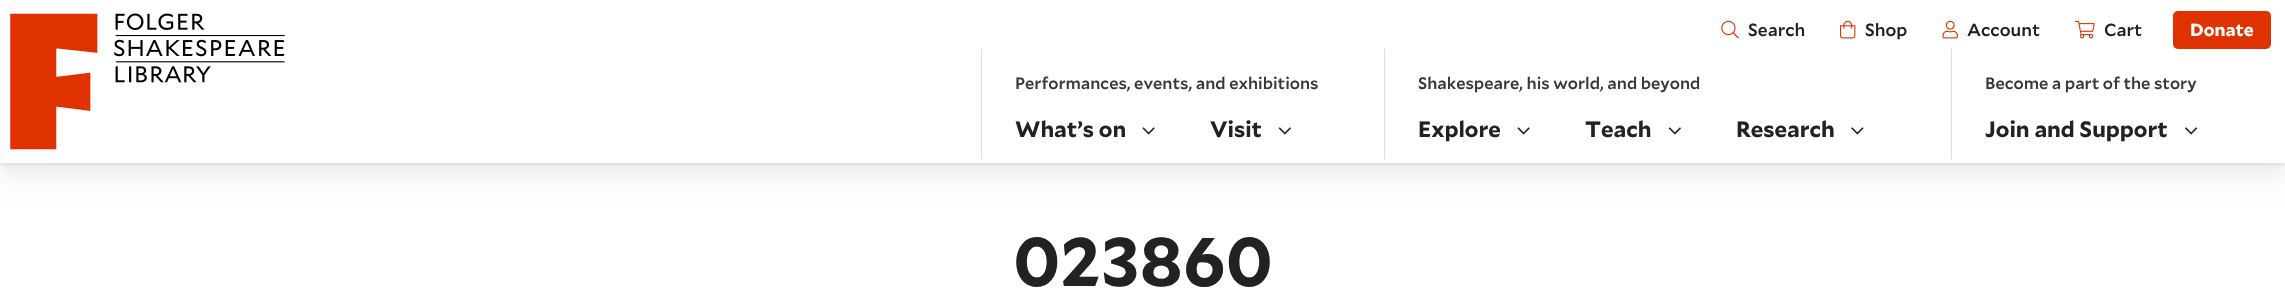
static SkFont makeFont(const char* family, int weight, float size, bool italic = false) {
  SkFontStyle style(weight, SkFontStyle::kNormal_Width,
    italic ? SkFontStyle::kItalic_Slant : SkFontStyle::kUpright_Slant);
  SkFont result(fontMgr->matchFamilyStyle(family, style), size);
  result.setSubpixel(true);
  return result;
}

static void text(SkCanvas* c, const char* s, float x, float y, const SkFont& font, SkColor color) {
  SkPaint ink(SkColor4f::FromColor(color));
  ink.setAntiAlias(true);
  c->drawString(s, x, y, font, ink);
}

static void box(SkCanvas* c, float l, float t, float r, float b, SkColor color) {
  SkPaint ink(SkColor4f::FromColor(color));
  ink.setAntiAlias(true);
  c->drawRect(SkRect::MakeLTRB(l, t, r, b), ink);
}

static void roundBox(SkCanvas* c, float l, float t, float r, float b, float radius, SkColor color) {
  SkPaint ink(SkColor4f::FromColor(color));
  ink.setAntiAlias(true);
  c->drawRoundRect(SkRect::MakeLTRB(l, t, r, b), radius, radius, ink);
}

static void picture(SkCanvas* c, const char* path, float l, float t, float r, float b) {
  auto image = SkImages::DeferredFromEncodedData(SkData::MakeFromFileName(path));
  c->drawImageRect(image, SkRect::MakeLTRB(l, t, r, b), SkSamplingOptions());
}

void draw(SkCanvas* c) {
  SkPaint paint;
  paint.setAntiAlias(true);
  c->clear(0xffffffff);
  paint.setColor(0x0f000000);
  paint.setMaskFilter(SkMaskFilter::MakeBlur(kNormal_SkBlurStyle, 9));
  c->drawRect(SkRect::MakeLTRB(0, 16, 2285, 179), paint);
  paint.setMaskFilter(nullptr);
  paint.setColor(0x17000000);
  paint.setMaskFilter(SkMaskFilter::MakeBlur(kNormal_SkBlurStyle, 2));
  c->drawRect(SkRect::MakeLTRB(0, 3, 2285, 165), paint);
  paint.setMaskFilter(nullptr);
  box(c, 0, 0, 2285, 163, 0xffffffff);
  picture(c, "img_01.png", 10, 13, 285, 150);
  picture(c, "img_02.png", 1721, 20, 1739, 39);
  SkFont face1 = makeFont("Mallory", 500, 17.5f);
  text(c, "Search", 1748, 36, face1, 0xff222222);
  picture(c, "img_03.png", 1840, 20, 1856, 39);
  text(c, "Shop", 1865, 36, face1, 0xff222222);
  picture(c, "img_04.png", 1942, 20, 1958, 39);
  text(c, "Account", 1967, 36, face1, 0xff222222);
  picture(c, "img_05.png", 2075, 20, 2095, 39);
  text(c, "Cart", 2104, 36, face1, 0xff222222);
  roundBox(c, 2173, 11, 2271, 49, 5, 0xffe03100);
  SkFont face2 = makeFont("Mallory", 700, 17.5f);
  text(c, "Donate", 2190, 36, face2, 0xffffffff);
  box(c, 981, 49, 982, 159, 0xffdddddd);
  SkFont face3 = makeFont("Mallory", 500, 16.5f);
  text(c, "Performances, events, and exhibitions", 1015, 89, face3, 0xff383838);
  SkFont face4 = makeFont("Mallory", 700, 22);
  text(c, "What’s on", 1015, 137, face4, 0xff222222);
  picture(c, "img_06.png", 1142, 127, 1155, 135);
  text(c, "Visit", 1210, 137, face4, 0xff222222);
  picture(c, "img_07.png", 1278, 127, 1291, 135);
  box(c, 1384, 49, 1385, 159, 0xffdddddd);
  text(c, "Shakespeare, his world, and beyond", 1418, 89, face3, 0xff383838);
  text(c, "Explore", 1418, 137, face4, 0xff222222);
  picture(c, "img_06.png", 1517, 127, 1530, 135);
  text(c, "Teach", 1585, 137, face4, 0xff222222);
  picture(c, "img_07.png", 1668, 127, 1681, 135);
  text(c, "Research", 1736, 137, face4, 0xff222222);
  picture(c, "img_08.png", 1851, 127, 1864, 135);
  box(c, 1951, 49, 1952, 159, 0xffdddddd);
  text(c, "Become a part of the story", 1985, 89, face3, 0xff383838);
  text(c, "Join and Support", 1985, 137, face4, 0xff222222);
  picture(c, "img_09.png", 2185, 127, 2198, 135);
  SkFont face5 = makeFont("Mallory", 700, 68.5f);
  text(c, "023860", 1013, 286, face5, 0xff222222);
}
